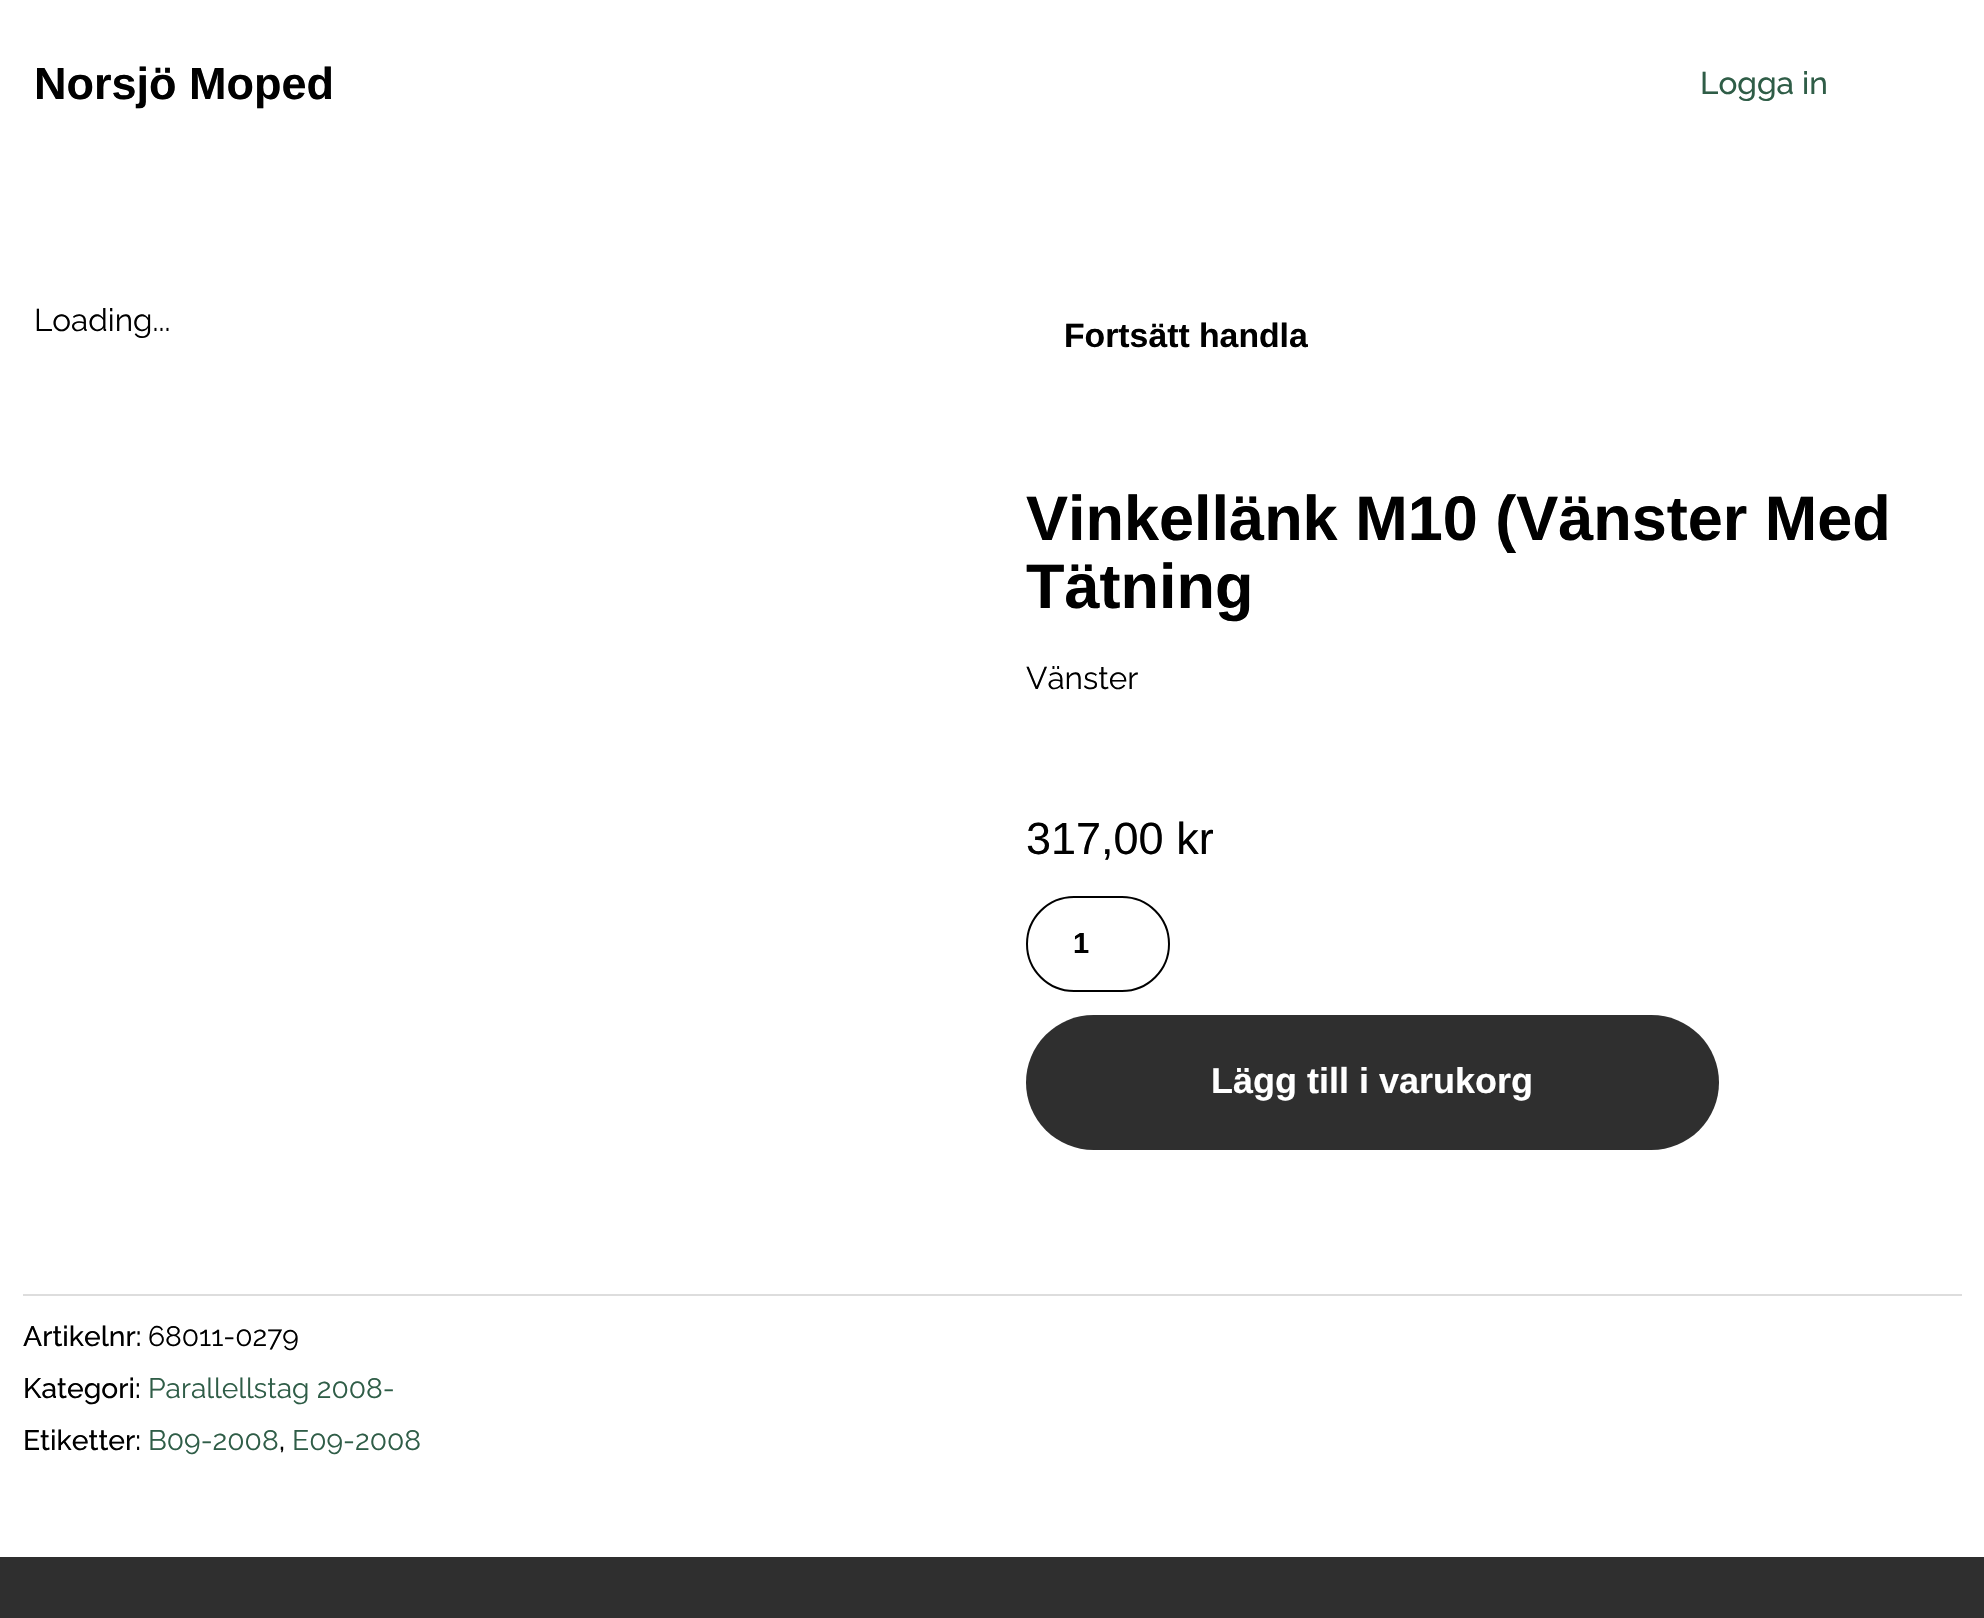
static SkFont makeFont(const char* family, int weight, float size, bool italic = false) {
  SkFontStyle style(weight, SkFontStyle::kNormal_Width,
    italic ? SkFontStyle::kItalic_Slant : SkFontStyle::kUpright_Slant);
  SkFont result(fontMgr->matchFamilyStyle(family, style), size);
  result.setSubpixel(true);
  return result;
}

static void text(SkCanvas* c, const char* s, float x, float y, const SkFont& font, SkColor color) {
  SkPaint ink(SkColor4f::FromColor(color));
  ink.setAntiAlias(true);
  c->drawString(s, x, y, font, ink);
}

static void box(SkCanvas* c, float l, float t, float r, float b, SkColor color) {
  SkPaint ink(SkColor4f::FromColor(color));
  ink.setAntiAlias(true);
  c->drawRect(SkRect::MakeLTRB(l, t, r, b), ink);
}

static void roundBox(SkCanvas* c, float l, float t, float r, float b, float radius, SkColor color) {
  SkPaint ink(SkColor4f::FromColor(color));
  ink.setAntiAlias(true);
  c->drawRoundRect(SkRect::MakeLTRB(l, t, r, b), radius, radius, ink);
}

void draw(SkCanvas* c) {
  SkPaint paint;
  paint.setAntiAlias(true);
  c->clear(0xffffffff);
  SkFont face1 = makeFont("Liberation Sans", 700, 45);
  text(c, "Norsjö Moped", 34, 99, face1, 0xff000000);
  SkFont face2 = makeFont("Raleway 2", 100, 31.5f);
  text(c, "Logga in", 1700, 94, face2, 0xff2f5d47);
  SkFont face3 = makeFont("Raleway", 100, 31.5f);
  text(c, "Loading...", 34, 331, face3, 0xff000000);
  SkFont face4 = makeFont("Liberation Sans", 700, 33.75f);
  text(c, "Fortsätt handla", 1064, 347, face4, 0xff000000);
  SkFont face5 = makeFont("Liberation Sans", 700, 63);
  text(c, "Vinkellänk M10 (Vänster Med", 1026, 540, face5, 0xff000000);
  text(c, "Tätning", 1026, 608, face5, 0xff000000);
  text(c, "Vänster", 1026, 689, face3, 0xff000000);
  SkFont face6 = makeFont("Liberation Sans", 400, 45);
  text(c, "317,00 kr", 1026, 854, face6, 0xff000000);
  paint.setStyle(SkPaint::kStroke_Style);
  paint.setStrokeWidth(2);
  paint.setColor(0xff000000);
  c->drawRoundRect(SkRect::MakeLTRB(1027, 897, 1169, 991), 47, 47, paint);
  SkFont face7 = makeFont("Liberation Sans", 700, 29);
  text(c, "1", 1073, 953, face7, 0xff000000);
  roundBox(c, 1026, 1015, 1719, 1150, 67.5f, 0xff2f2f2f);
  SkFont face8 = makeFont("Liberation Sans", 700, 36);
  text(c, "Lägg till i varukorg", 1211, 1093, face8, 0xffffffff);
  box(c, 23, 1294, 1962, 1296, 0xffdddddd);
  SkFont face9 = makeFont("Raleway 2", 100, 28.25f);
  text(c, "Artikelnr:", 23, 1346, face9, 0xff000000);
  SkFont face10 = makeFont("Raleway", 100, 28.25f);
  text(c, "68011-0279", 148, 1346, face10, 0xff000000);
  text(c, "Kategori:", 23, 1398, face9, 0xff000000);
  text(c, "Parallellstag 2008-", 148, 1398, face10, 0xff2f5d47);
  text(c, "Etiketter:", 23, 1450, face9, 0xff000000);
  text(c, "B09-2008", 148, 1450, face10, 0xff2f5d47);
  text(c, ",", 279, 1450, face9, 0xff000000);
  text(c, "E09-2008", 292, 1450, face10, 0xff2f5d47);
  box(c, 0, 1557, 1984, 1618, 0xff2f2f2f);
}
